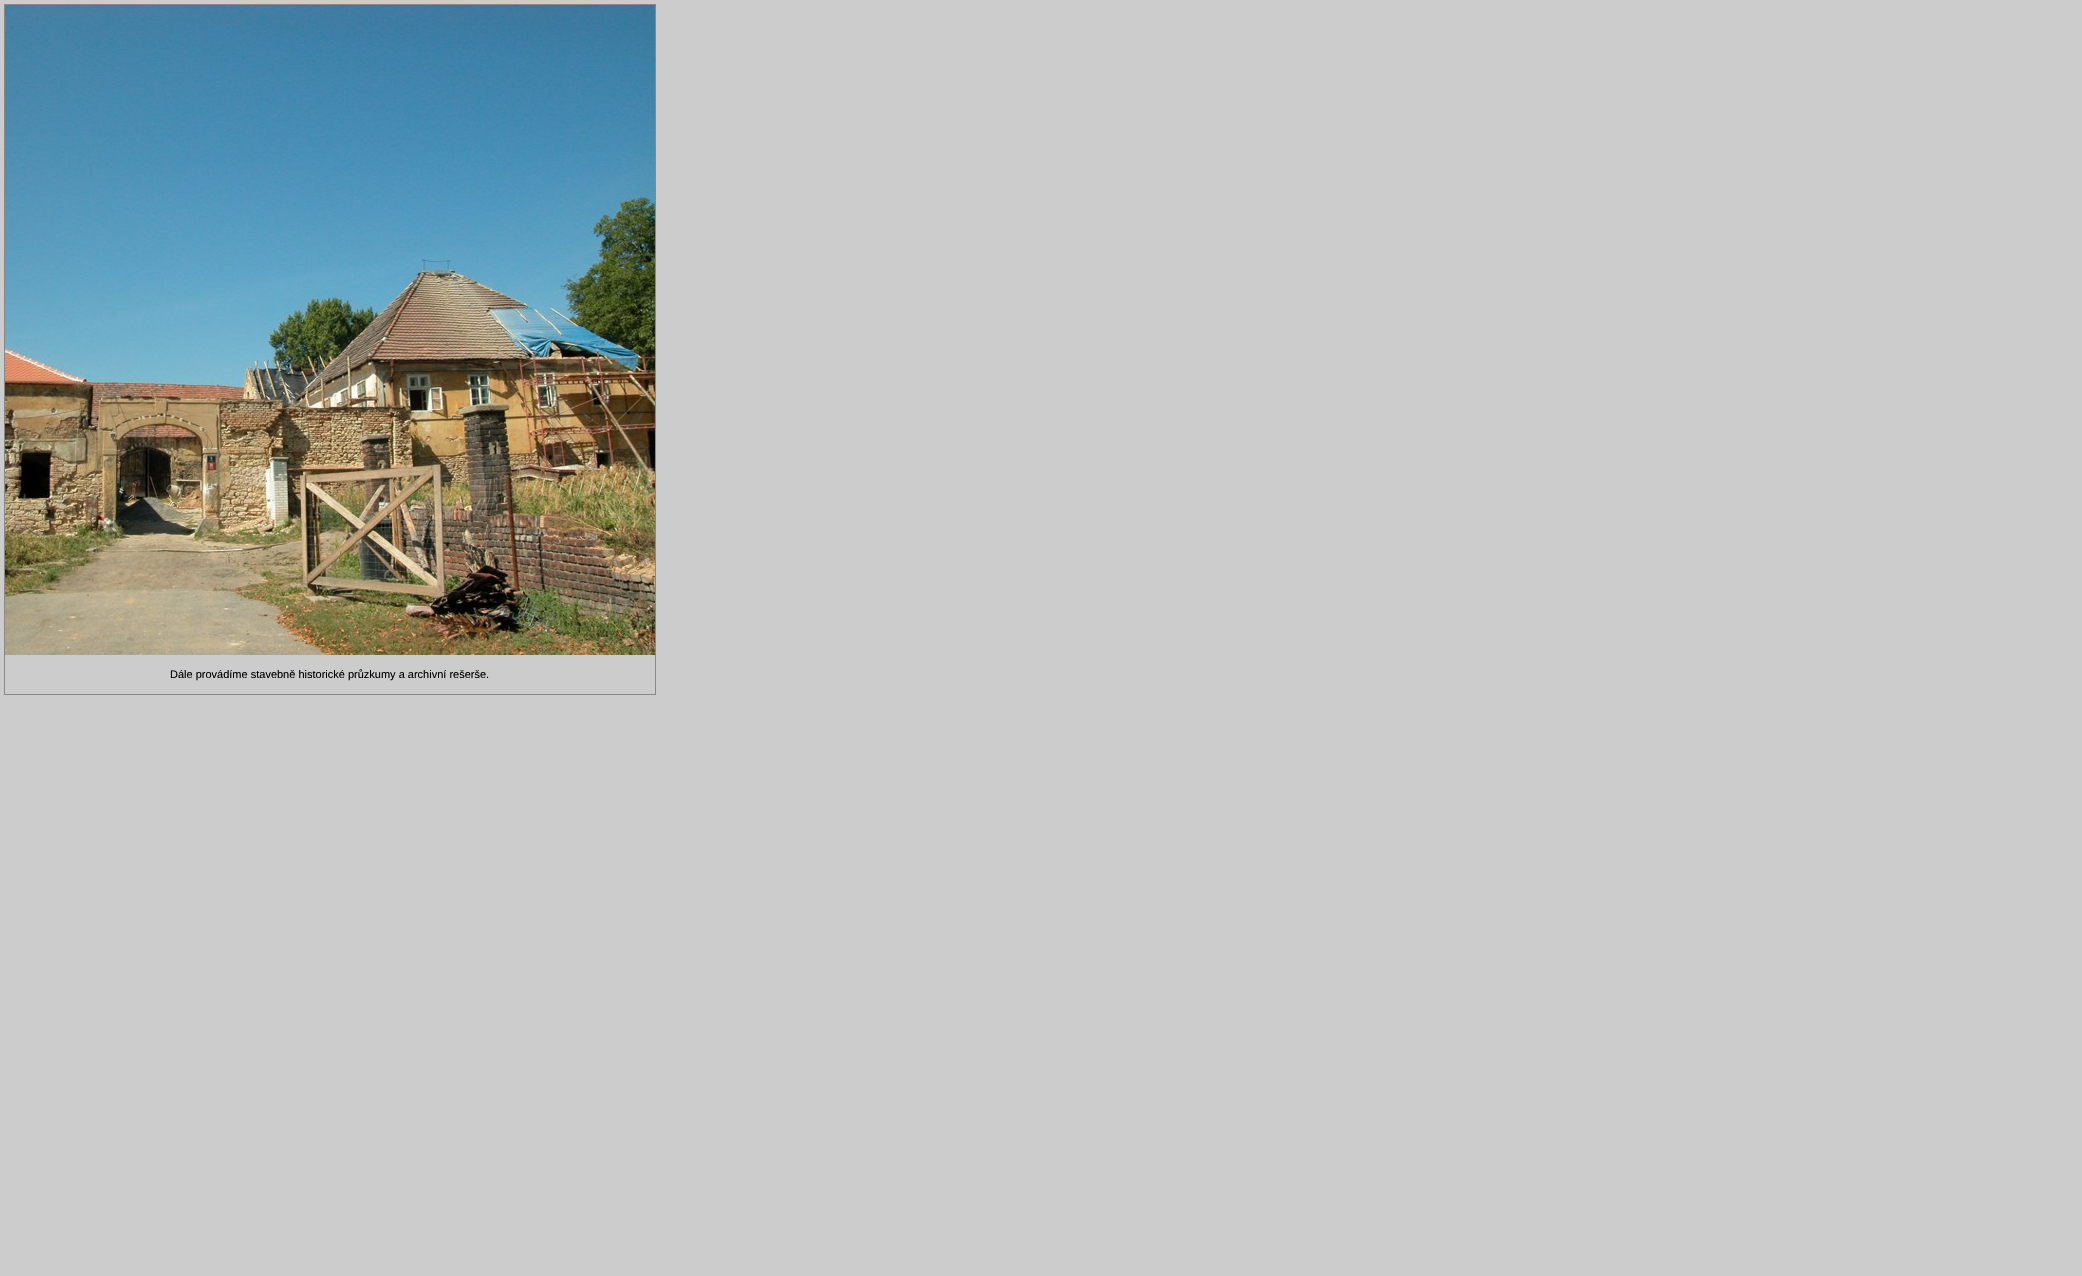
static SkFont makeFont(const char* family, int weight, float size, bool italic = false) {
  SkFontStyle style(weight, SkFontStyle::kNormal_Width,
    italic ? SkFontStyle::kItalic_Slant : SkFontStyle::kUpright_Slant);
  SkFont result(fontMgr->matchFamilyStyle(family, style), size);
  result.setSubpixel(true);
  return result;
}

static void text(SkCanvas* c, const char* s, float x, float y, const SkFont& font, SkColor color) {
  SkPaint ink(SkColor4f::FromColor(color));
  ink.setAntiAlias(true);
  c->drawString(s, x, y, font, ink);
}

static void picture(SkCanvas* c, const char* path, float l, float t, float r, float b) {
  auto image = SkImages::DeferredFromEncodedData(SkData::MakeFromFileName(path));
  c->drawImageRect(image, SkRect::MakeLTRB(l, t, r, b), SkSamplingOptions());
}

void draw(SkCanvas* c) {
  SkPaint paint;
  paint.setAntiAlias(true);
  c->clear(0xffcccccc);
  paint.setStyle(SkPaint::kStroke_Style);
  paint.setStrokeWidth(1);
  paint.setColor(0xff888888);
  c->drawRect(SkRect::MakeLTRB(4.5f, 4.5f, 655.5f, 694.5f), paint);
  picture(c, "img_01.png", 5, 5, 655, 655);
  SkFont face1 = makeFont("Liberation Sans", 400, 11);
  text(c, "Dále provádíme stavebně historické průzkumy a archivní rešerše.", 170, 678, face1, 0xff000000);
}
